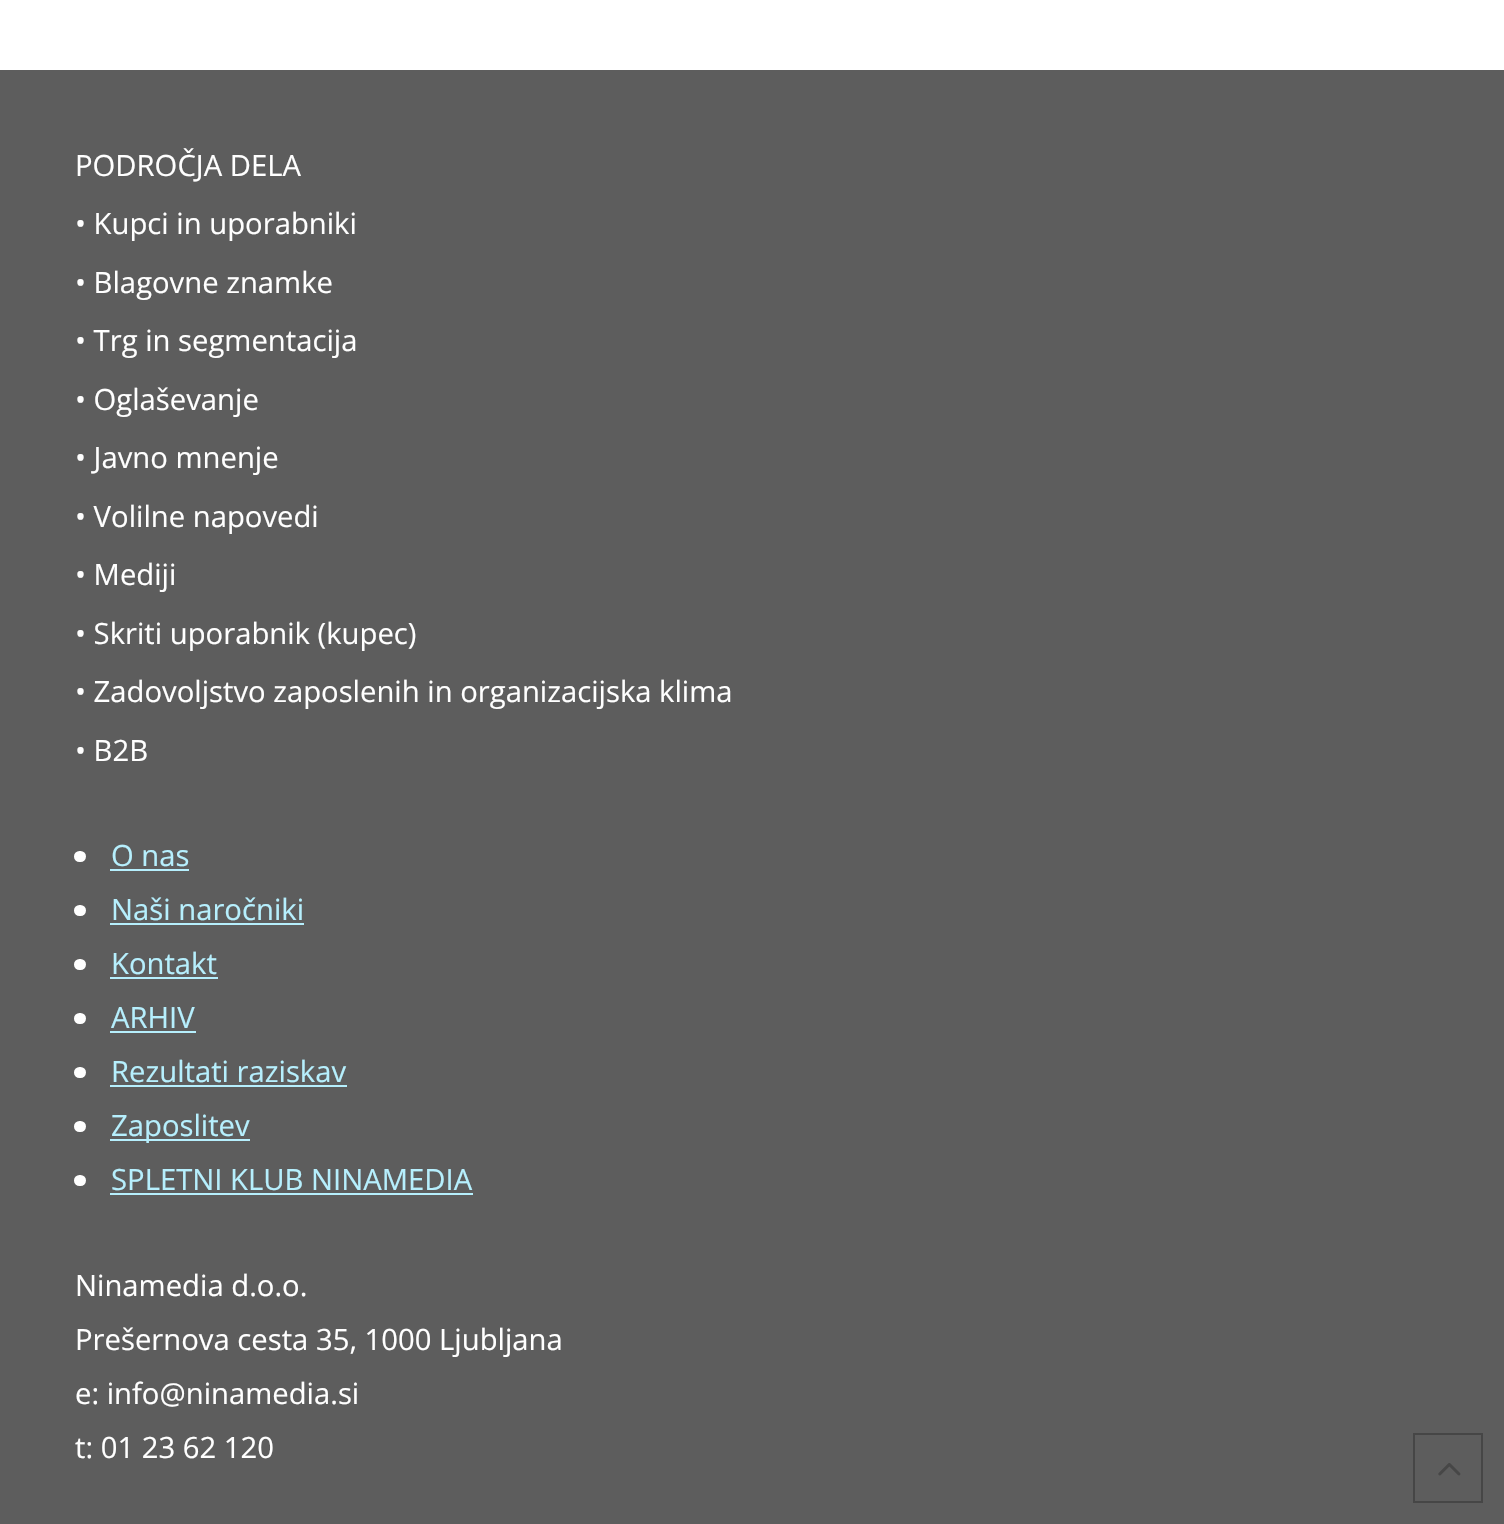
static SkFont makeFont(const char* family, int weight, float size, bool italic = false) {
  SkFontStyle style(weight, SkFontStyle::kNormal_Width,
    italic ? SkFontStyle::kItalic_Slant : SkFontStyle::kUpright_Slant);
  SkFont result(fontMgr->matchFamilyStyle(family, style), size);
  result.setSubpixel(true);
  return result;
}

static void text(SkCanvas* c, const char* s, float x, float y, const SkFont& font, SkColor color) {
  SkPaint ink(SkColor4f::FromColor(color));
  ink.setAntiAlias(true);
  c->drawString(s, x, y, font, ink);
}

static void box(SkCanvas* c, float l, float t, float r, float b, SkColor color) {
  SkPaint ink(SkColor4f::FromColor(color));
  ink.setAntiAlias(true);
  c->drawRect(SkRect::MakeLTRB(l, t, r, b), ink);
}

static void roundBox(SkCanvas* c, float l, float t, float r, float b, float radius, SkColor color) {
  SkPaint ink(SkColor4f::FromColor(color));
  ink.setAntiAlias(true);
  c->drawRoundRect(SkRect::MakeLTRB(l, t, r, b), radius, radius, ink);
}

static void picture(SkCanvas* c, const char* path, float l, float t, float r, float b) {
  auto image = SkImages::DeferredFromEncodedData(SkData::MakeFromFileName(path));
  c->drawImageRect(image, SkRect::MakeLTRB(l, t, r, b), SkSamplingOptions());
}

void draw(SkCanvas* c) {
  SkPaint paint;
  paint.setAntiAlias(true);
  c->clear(0xffffffff);
  box(c, 0, 70, 1504, 1524, 0xff5d5d5d);
  SkFont face1 = makeFont("Open Sans", 400, 29.25f);
  text(c, "PODROČJA DELA", 75, 176, face1, 0xffffffff);
  text(c, "• Kupci in uporabniki", 75, 234, face1, 0xffffffff);
  text(c, "• Blagovne znamke", 75, 293, face1, 0xffffffff);
  text(c, "• Trg in segmentacija", 75, 351, face1, 0xffffffff);
  text(c, "• Oglaševanje", 75, 410, face1, 0xffffffff);
  text(c, "• Javno mnenje", 75, 468, face1, 0xffffffff);
  text(c, "• Volilne napovedi", 75, 527, face1, 0xffffffff);
  text(c, "• Mediji", 75, 585, face1, 0xffffffff);
  text(c, "• Skriti uporabnik (kupec)", 75, 644, face1, 0xffffffff);
  text(c, "• Zadovoljstvo zaposlenih in organizacijska klima", 75, 702, face1, 0xffffffff);
  text(c, "• B2B", 75, 761, face1, 0xffffffff);
  roundBox(c, 74, 851, 86, 862, 5.5f, 0xffffffff);
  text(c, "O nas", 111, 866, face1, 0xffb6effd);
  box(c, 110, 869, 189, 871, 0xffb6effd);
  roundBox(c, 74, 905, 86, 916, 5.5f, 0xffffffff);
  text(c, "Naši naročniki", 111, 920, face1, 0xffb6effd);
  box(c, 110, 923, 304, 925, 0xffb6effd);
  roundBox(c, 74, 959, 86, 970, 5.5f, 0xffffffff);
  text(c, "Kontakt", 111, 974, face1, 0xffb6effd);
  box(c, 110, 977, 218, 979, 0xffb6effd);
  roundBox(c, 74, 1013, 86, 1024, 5.5f, 0xffffffff);
  text(c, "ARHIV", 111, 1028, face1, 0xffb6effd);
  box(c, 110, 1031, 196, 1033, 0xffb6effd);
  roundBox(c, 74, 1067, 86, 1078, 5.5f, 0xffffffff);
  text(c, "Rezultati raziskav", 111, 1082, face1, 0xffb6effd);
  box(c, 110, 1085, 347, 1087, 0xffb6effd);
  roundBox(c, 74, 1121, 86, 1132, 5.5f, 0xffffffff);
  box(c, 110, 1139, 250, 1141, 0xffb6effd);
  text(c, "Zaposlitev", 111, 1136, face1, 0xffb6effd);
  roundBox(c, 74, 1175, 86, 1186, 5.5f, 0xffffffff);
  text(c, "SPLETNI KLUB NINAMEDIA", 111, 1190, face1, 0xffb6effd);
  box(c, 110, 1193, 473, 1195, 0xffb6effd);
  text(c, "Ninamedia d.o.o.", 75, 1296, face1, 0xffffffff);
  text(c, "Prešernova cesta 35, 1000 Ljubljana", 75, 1350, face1, 0xffffffff);
  text(c, "e: info@ninamedia.si", 75, 1404, face1, 0xffffffff);
  text(c, "t: 01 23 62 120", 75, 1458, face1, 0xffffffff);
  paint.setStyle(SkPaint::kStroke_Style);
  paint.setStrokeWidth(2);
  paint.setColor(0xff464646);
  c->drawRect(SkRect::MakeLTRB(1414, 1434, 1482, 1502), paint);
  picture(c, "img_01.png", 1438, 1463, 1461, 1476);
}
